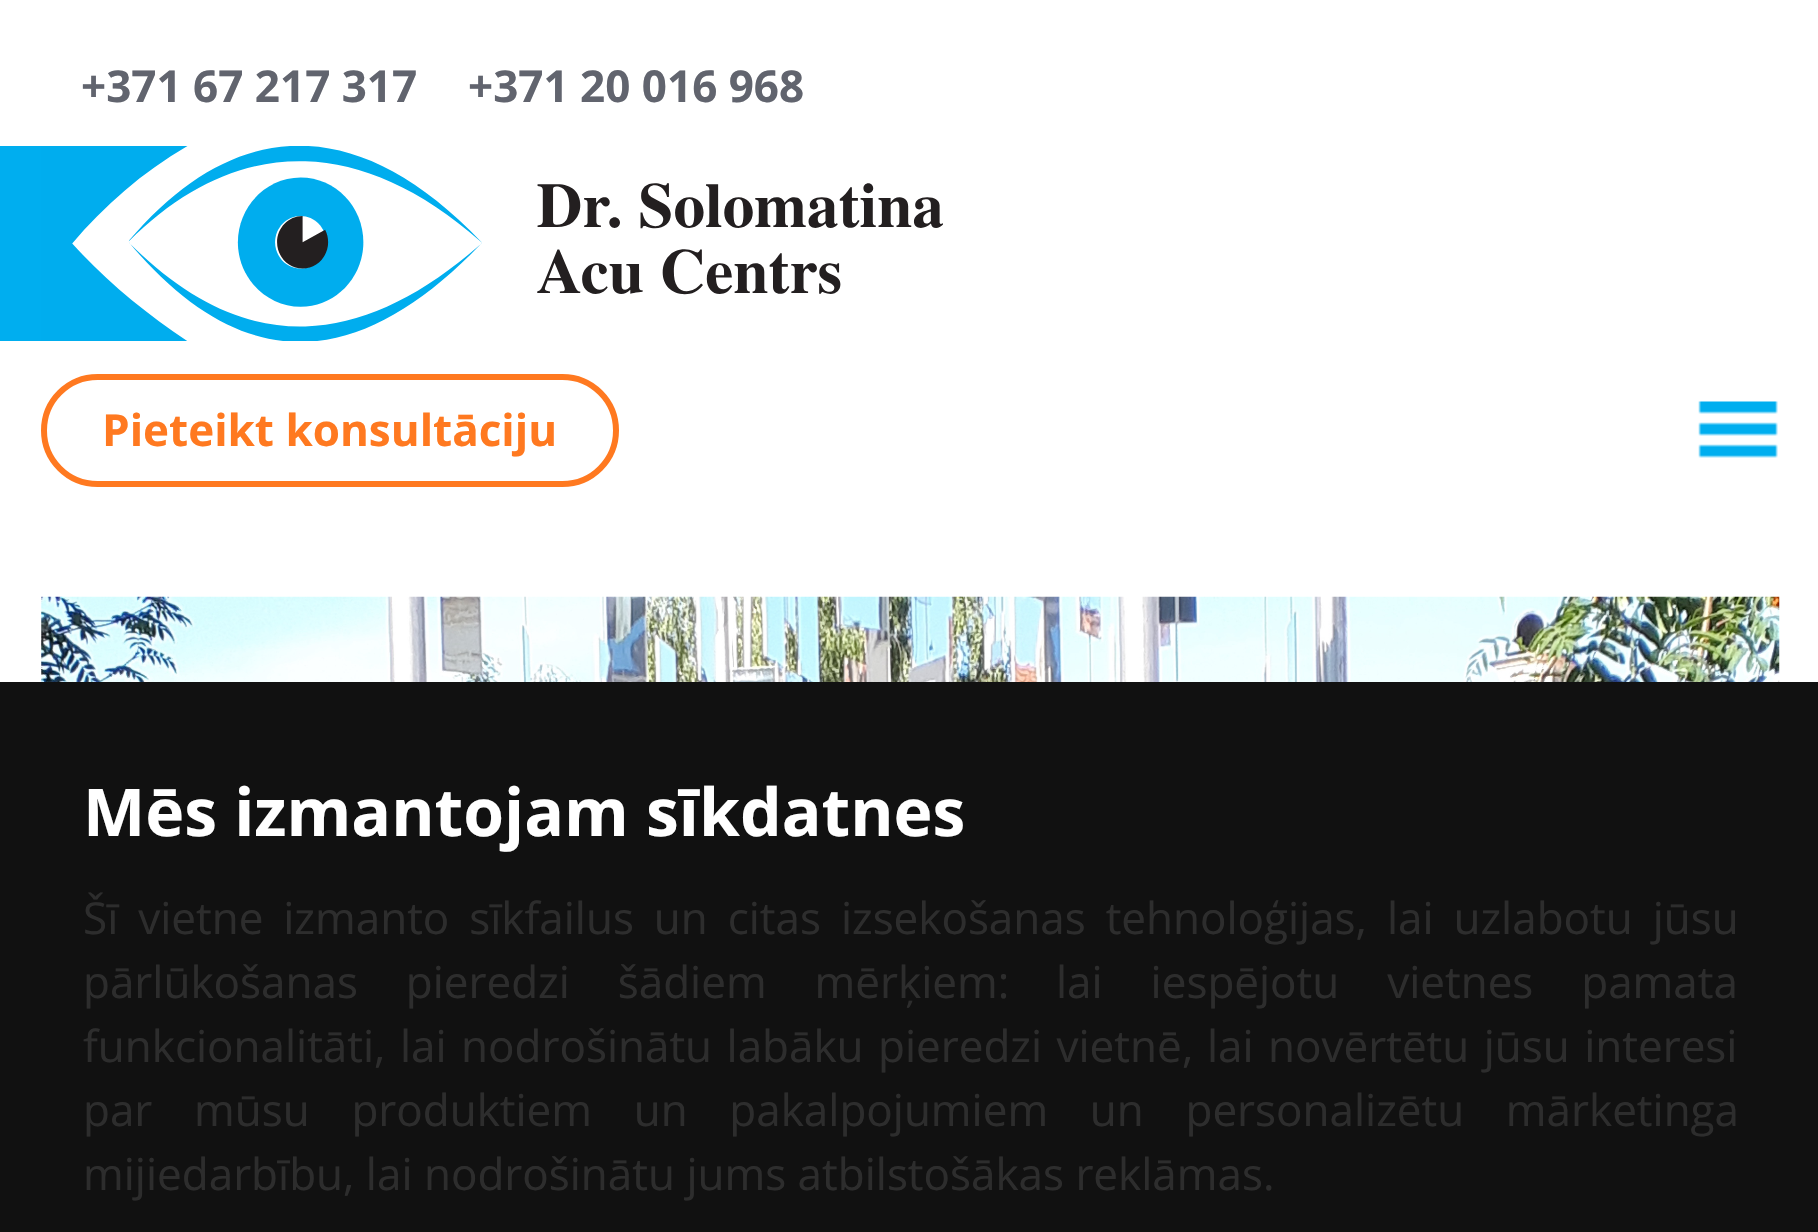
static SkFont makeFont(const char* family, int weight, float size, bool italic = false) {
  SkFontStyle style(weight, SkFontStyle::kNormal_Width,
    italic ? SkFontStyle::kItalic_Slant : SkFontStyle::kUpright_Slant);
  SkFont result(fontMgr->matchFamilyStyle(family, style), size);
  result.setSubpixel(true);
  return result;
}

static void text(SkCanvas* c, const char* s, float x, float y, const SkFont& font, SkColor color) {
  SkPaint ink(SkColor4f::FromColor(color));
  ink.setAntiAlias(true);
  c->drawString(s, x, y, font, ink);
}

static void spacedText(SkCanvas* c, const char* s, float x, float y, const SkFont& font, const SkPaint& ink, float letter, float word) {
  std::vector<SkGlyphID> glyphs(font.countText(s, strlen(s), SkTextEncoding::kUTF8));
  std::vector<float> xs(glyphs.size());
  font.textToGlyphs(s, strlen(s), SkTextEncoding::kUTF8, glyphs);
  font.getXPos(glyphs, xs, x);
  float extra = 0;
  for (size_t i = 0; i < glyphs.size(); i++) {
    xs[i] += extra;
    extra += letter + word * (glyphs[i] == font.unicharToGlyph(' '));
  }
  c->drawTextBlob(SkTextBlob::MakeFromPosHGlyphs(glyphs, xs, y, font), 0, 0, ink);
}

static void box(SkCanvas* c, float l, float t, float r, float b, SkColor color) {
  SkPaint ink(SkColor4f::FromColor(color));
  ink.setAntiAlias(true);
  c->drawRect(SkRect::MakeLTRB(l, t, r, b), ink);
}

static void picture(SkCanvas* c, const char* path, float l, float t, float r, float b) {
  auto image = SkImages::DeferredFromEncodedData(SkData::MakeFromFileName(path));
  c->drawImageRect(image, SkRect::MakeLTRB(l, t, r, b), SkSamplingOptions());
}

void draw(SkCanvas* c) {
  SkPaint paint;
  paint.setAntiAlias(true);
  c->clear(0xffffffff);
  SkFont face1 = makeFont("Open Sans", 700, 44);
  text(c, "+371 67 217 317", 81, 102, face1, 0xff61646e);
  text(c, "+371 20 016 968", 468, 102, face1, 0xff61646e);
  box(c, 0, 146, 41, 341, 0xff00aeef);
  picture(c, "img_01.png", 41, 146, 943, 341);
  paint.setStyle(SkPaint::kStroke_Style);
  paint.setStrokeWidth(6);
  paint.setColor(0xffff7920);
  c->drawRoundRect(SkRect::MakeLTRB(44, 377, 616, 484), 53.5f, 53.5f, paint);
  text(c, "Pieteikt konsultāciju", 102, 446, face1, 0xffff7920);
  picture(c, "img_02.png", 1698, 401, 1778, 458);
  picture(c, "img_03.png", 41, 596, 1780, 682);
  box(c, 0, 682, 1818, 1232, 0xff111111);
  SkFont face2 = makeFont("Open Sans", 700, 66);
  text(c, "Mēs izmantojam sīkdatnes", 83, 836, face2, 0xffffffff);
  SkFont face3 = makeFont("Open Sans", 400, 44);
  paint.setStyle(SkPaint::kFill_Style);
  paint.setColor(0xff2d2d2d);
  spacedText(c, "Šī vietne izmanto sīkfailus un citas izsekošanas tehnoloģijas, lai uzlabotu jūsu", 83, 934, face3, paint, 0, 8.5f);
  spacedText(c, "pārlūkošanas pieredzi šādiem mērķiem:", 83, 998, face3, paint, 0, 36.5f);
  spacedText(c, "lai iespējotu vietnes pamata", 1056, 998, face3, paint, 0, 36.5f);
  text(c, "funkcionalitāti,", 83, 1062, face3, 0xff2d2d2d);
  spacedText(c, "lai nodrošinātu labāku pieredzi vietnē", 400, 1062, face3, paint, 0, 3);
  text(c, ",", 1182, 1062, face3, 0xff2d2d2d);
  spacedText(c, "lai novērtētu jūsu interesi", 1207, 1062, face3, paint, 0, 3);
  spacedText(c, "par mūsu produktiem un pakalpojumiem un personalizētu mārketinga", 83, 1126, face3, paint, 0, 30.25f);
  text(c, "mijiedarbību, lai nodrošinātu jums atbilstošākas reklāmas.", 83, 1190, face3, 0xff2d2d2d);
}
